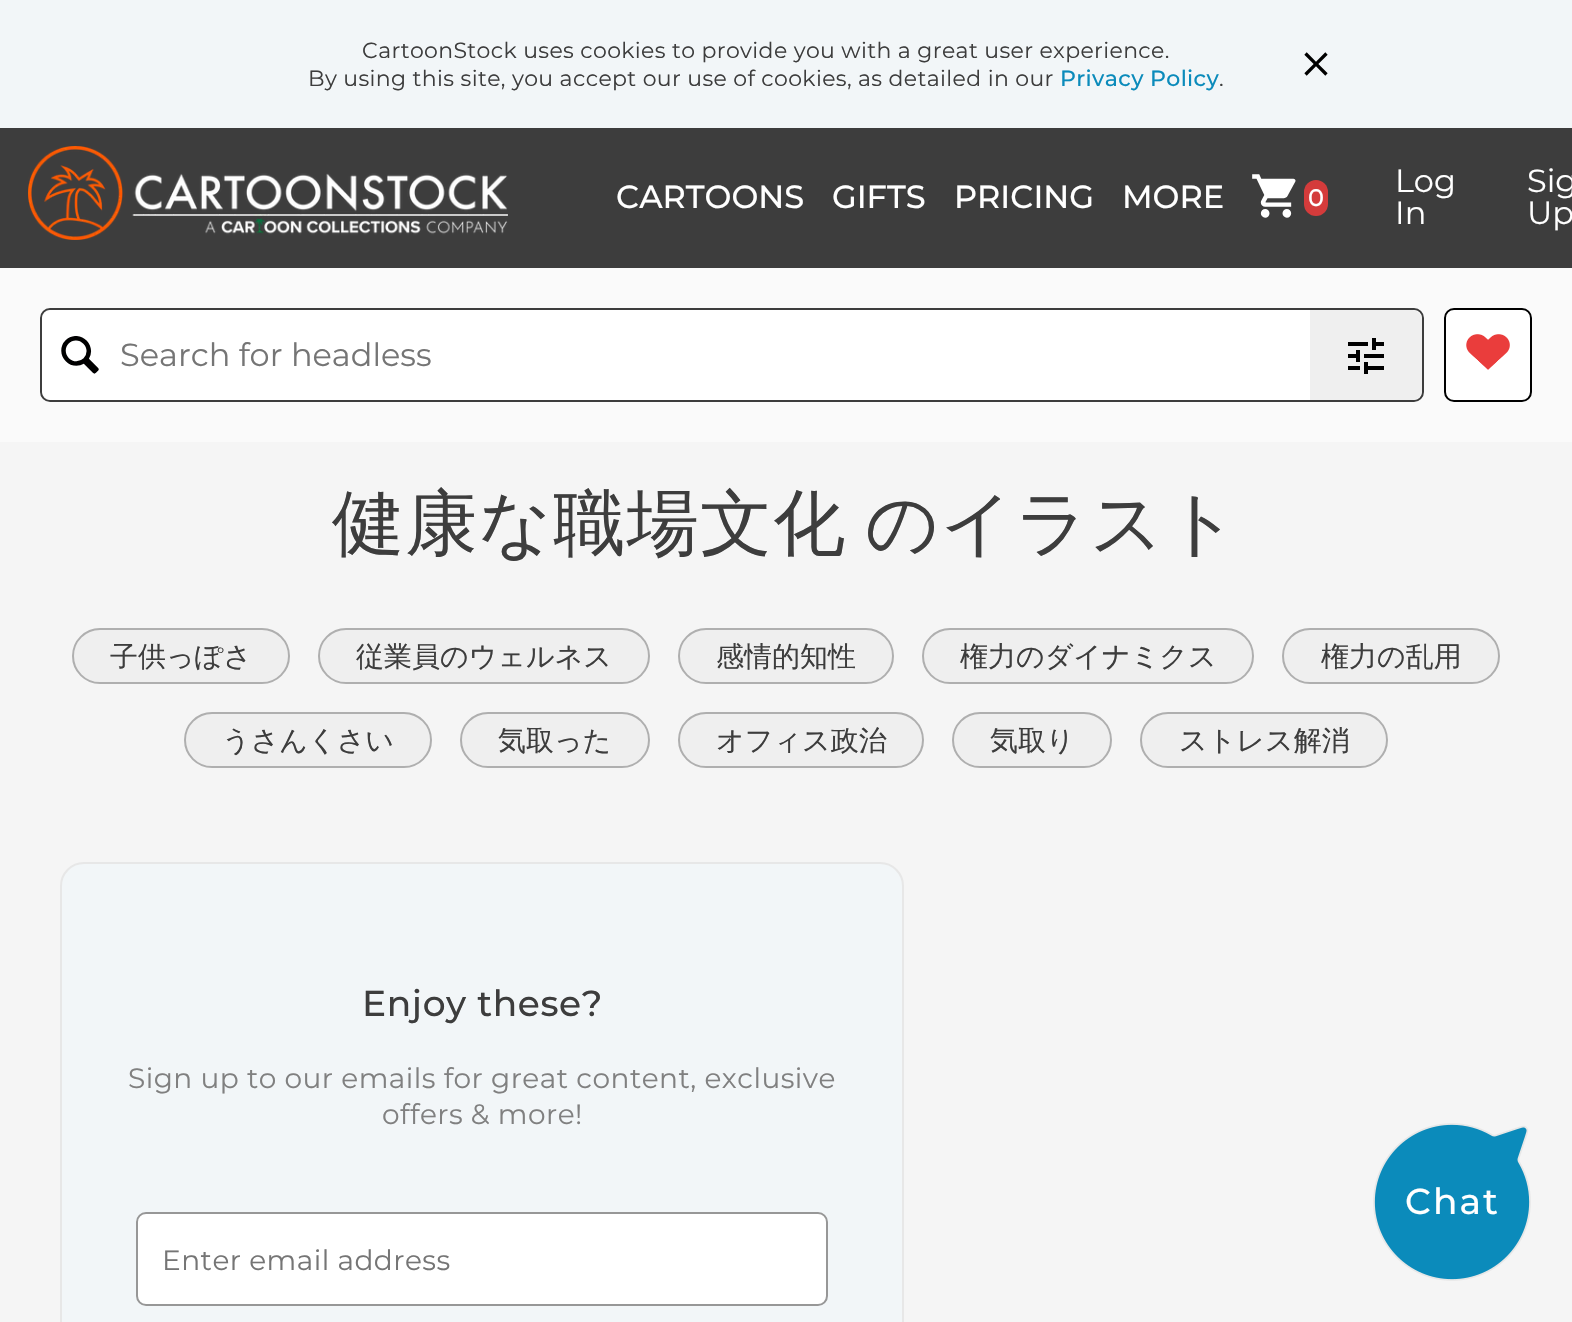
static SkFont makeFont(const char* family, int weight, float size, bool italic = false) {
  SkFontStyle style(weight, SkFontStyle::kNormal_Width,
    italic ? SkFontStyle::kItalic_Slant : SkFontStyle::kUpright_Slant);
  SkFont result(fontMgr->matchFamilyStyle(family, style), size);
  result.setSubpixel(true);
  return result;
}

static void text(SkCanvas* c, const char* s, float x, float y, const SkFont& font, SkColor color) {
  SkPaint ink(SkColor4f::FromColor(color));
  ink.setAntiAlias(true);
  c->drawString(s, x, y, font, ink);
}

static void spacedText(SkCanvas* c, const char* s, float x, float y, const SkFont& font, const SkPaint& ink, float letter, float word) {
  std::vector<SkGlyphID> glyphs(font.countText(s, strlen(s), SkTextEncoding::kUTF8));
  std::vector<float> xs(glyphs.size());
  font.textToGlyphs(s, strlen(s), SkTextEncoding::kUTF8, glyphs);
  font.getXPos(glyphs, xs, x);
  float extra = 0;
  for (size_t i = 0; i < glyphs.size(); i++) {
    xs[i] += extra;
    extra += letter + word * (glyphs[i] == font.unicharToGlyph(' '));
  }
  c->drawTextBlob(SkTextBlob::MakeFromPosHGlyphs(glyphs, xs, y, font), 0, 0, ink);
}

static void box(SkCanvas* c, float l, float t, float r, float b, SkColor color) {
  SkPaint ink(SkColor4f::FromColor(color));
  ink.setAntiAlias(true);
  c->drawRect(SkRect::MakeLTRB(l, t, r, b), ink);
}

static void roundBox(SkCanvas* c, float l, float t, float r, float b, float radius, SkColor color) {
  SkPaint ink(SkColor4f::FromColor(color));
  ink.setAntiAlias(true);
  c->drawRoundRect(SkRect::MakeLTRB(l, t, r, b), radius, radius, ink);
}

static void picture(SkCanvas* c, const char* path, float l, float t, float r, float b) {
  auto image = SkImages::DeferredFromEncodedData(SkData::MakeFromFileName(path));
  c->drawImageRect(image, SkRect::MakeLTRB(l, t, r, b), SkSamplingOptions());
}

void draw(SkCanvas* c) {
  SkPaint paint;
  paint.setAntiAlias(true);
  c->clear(0xfff5f5f5);
  box(c, 0, 0, 1572, 128, 0xfff2f6f8);
  SkFont face1 = makeFont("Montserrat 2", 100, 22);
  paint.setColor(0xff3d3d3d);
  spacedText(c, "CartoonStock uses cookies to provide you with a great user experience.", 362, 58, face1, paint, 0.35f, 0);
  spacedText(c, "By using this site, you accept our use of cookies, as detailed in our", 308, 86, face1, paint, 0.35f, 0);
  SkFont face2 = makeFont("Montserrat", 100, 22);
  paint.setColor(0xff0b8bbb);
  spacedText(c, "Privacy Policy", 1060, 86, face2, paint, 0.35f, 0);
  paint.setColor(0xff3d3d3d);
  spacedText(c, ".", 1219, 86, face1, paint, 0.35f, 0);
  picture(c, "img_01.png", 1304, 52, 1328, 76);
  box(c, 0, 268, 1572, 442, 0xfffafafa);
  box(c, 0, 128, 1572, 268, 0xff3d3d3d);
  picture(c, "img_02.png", 28, 146, 508, 240);
  SkFont face3 = makeFont("Montserrat", 100, 32);
  text(c, "CARTOONS", 616, 208, face3, 0xffffffff);
  text(c, "GIFTS", 832, 208, face3, 0xffffffff);
  text(c, "PRICING", 954, 208, face3, 0xffffffff);
  text(c, "MORE", 1122, 208, face3, 0xffffffff);
  picture(c, "img_03.png", 1252, 174, 1296, 218);
  roundBox(c, 1304, 180, 1328, 216, 12, 0xffd43b3b);
  SkFont face4 = makeFont("Montserrat", 100, 24);
  text(c, "0", 1308, 206, face4, 0xffffffff);
  SkFont face5 = makeFont("Montserrat 2", 100, 32);
  text(c, "Log", 1395, 192, face5, 0xffffffff);
  text(c, "In", 1395, 224, face5, 0xffffffff);
  text(c, "Sig", 1527, 192, face5, 0xffffffff);
  text(c, "Up", 1527, 224, face5, 0xffffffff);
  paint.setStyle(SkPaint::kStroke_Style);
  paint.setStrokeWidth(2);
  c->drawRoundRect(SkRect::MakeLTRB(41, 309, 1423, 401), 9, 9, paint);
  paint.setStyle(SkPaint::kFill_Style);
  paint.setColor(0xffffffff);
  c->drawPath(SkPathBuilder().moveTo(52, 310).lineTo(120, 310).lineTo(120, 400).lineTo(52, 400).cubicTo(46.5f, 400, 42, 395.5f, 42, 390).lineTo(42, 320).cubicTo(42, 314.5f, 46.5f, 310, 52, 310).close().detach(), paint);
  picture(c, "img_04.png", 61, 336, 99, 374);
  box(c, 120, 310, 1310, 400, 0xffffffff);
  text(c, "Search for headless", 120, 366, face5, 0xff757575);
  paint.setColor(0xffefefef);
  c->drawPath(SkPathBuilder().moveTo(1310, 310).lineTo(1412, 310).cubicTo(1417.5f, 310, 1422, 314.5f, 1422, 320).lineTo(1422, 390).cubicTo(1422, 395.5f, 1417.5f, 400, 1412, 400).lineTo(1310, 400).close().detach(), paint);
  picture(c, "img_05.png", 1348, 338, 1384, 374);
  paint.setColor(0xffffffff);
  c->drawRoundRect(SkRect::MakeLTRB(1445, 309, 1531, 401), 9, 9, paint);
  paint.setStyle(SkPaint::kStroke_Style);
  paint.setColor(0xff000000);
  c->drawRoundRect(SkRect::MakeLTRB(1445, 309, 1531, 401), 9, 9, paint);
  picture(c, "img_06.png", 1466, 334, 1510, 370);
  SkFont face6 = makeFont("WenQuanYi Zen Hei", 500, 72);
  paint.setStyle(SkPaint::kFill_Style);
  paint.setColor(0xff3d3d3d);
  spacedText(c, "健康な職場文化 のイラスト", 332, 548, face6, paint, 1.25f, -4);
  paint.setColor(0xffefefef);
  c->drawRoundRect(SkRect::MakeLTRB(73, 629, 289, 683), 27, 27, paint);
  paint.setStyle(SkPaint::kStroke_Style);
  paint.setColor(0xffafafaf);
  c->drawRoundRect(SkRect::MakeLTRB(73, 629, 289, 683), 27, 27, paint);
  SkFont face7 = makeFont("WenQuanYi Zen Hei", 500, 28);
  text(c, "子供っぽさ", 110, 666, face7, 0xff3d3d3d);
  paint.setStyle(SkPaint::kFill_Style);
  paint.setColor(0xffefefef);
  c->drawRoundRect(SkRect::MakeLTRB(319, 629, 649, 683), 27, 27, paint);
  paint.setStyle(SkPaint::kStroke_Style);
  paint.setColor(0xffafafaf);
  c->drawRoundRect(SkRect::MakeLTRB(319, 629, 649, 683), 27, 27, paint);
  text(c, "従業員のウェルネス", 356, 666, face7, 0xff3d3d3d);
  paint.setStyle(SkPaint::kFill_Style);
  paint.setColor(0xffefefef);
  c->drawRoundRect(SkRect::MakeLTRB(679, 629, 893, 683), 27, 27, paint);
  paint.setStyle(SkPaint::kStroke_Style);
  paint.setColor(0xffafafaf);
  c->drawRoundRect(SkRect::MakeLTRB(679, 629, 893, 683), 27, 27, paint);
  text(c, "感情的知性", 716, 666, face7, 0xff3d3d3d);
  paint.setStyle(SkPaint::kFill_Style);
  paint.setColor(0xffefefef);
  c->drawRoundRect(SkRect::MakeLTRB(923, 629, 1253, 683), 27, 27, paint);
  paint.setStyle(SkPaint::kStroke_Style);
  paint.setColor(0xffafafaf);
  c->drawRoundRect(SkRect::MakeLTRB(923, 629, 1253, 683), 27, 27, paint);
  text(c, "権力のダイナミクス", 960, 666, face7, 0xff3d3d3d);
  paint.setStyle(SkPaint::kFill_Style);
  paint.setColor(0xffefefef);
  c->drawRoundRect(SkRect::MakeLTRB(1283, 629, 1499, 683), 27, 27, paint);
  paint.setStyle(SkPaint::kStroke_Style);
  paint.setColor(0xffafafaf);
  c->drawRoundRect(SkRect::MakeLTRB(1283, 629, 1499, 683), 27, 27, paint);
  text(c, "権力の乱用", 1321, 666, face7, 0xff3d3d3d);
  paint.setStyle(SkPaint::kFill_Style);
  paint.setColor(0xffefefef);
  c->drawRoundRect(SkRect::MakeLTRB(185, 713, 431, 767), 27, 27, paint);
  paint.setStyle(SkPaint::kStroke_Style);
  paint.setColor(0xffafafaf);
  c->drawRoundRect(SkRect::MakeLTRB(185, 713, 431, 767), 27, 27, paint);
  text(c, "うさんくさい", 222, 750, face7, 0xff3d3d3d);
  paint.setStyle(SkPaint::kFill_Style);
  paint.setColor(0xffefefef);
  c->drawRoundRect(SkRect::MakeLTRB(461, 713, 649, 767), 27, 27, paint);
  paint.setStyle(SkPaint::kStroke_Style);
  paint.setColor(0xffafafaf);
  c->drawRoundRect(SkRect::MakeLTRB(461, 713, 649, 767), 27, 27, paint);
  text(c, "気取った", 498, 750, face7, 0xff3d3d3d);
  paint.setStyle(SkPaint::kFill_Style);
  paint.setColor(0xffefefef);
  c->drawRoundRect(SkRect::MakeLTRB(679, 713, 923, 767), 27, 27, paint);
  paint.setStyle(SkPaint::kStroke_Style);
  paint.setColor(0xffafafaf);
  c->drawRoundRect(SkRect::MakeLTRB(679, 713, 923, 767), 27, 27, paint);
  text(c, "オフィス政治", 716, 750, face7, 0xff3d3d3d);
  paint.setStyle(SkPaint::kFill_Style);
  paint.setColor(0xffefefef);
  c->drawRoundRect(SkRect::MakeLTRB(953, 713, 1111, 767), 27, 27, paint);
  paint.setStyle(SkPaint::kStroke_Style);
  paint.setColor(0xffafafaf);
  c->drawRoundRect(SkRect::MakeLTRB(953, 713, 1111, 767), 27, 27, paint);
  text(c, "気取り", 990, 750, face7, 0xff3d3d3d);
  paint.setStyle(SkPaint::kFill_Style);
  paint.setColor(0xffefefef);
  c->drawRoundRect(SkRect::MakeLTRB(1141, 713, 1387, 767), 27, 27, paint);
  paint.setStyle(SkPaint::kStroke_Style);
  paint.setColor(0xffafafaf);
  c->drawRoundRect(SkRect::MakeLTRB(1141, 713, 1387, 767), 27, 27, paint);
  text(c, "ストレス解消", 1179, 750, face7, 0xff3d3d3d);
  paint.setStyle(SkPaint::kFill_Style);
  paint.setColor(0xfff2f6f8);
  c->drawRoundRect(SkRect::MakeLTRB(61, 863, 903, 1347), 23, 23, paint);
  paint.setStyle(SkPaint::kStroke_Style);
  paint.setColor(0xffe7e7e7);
  c->drawRoundRect(SkRect::MakeLTRB(61, 863, 903, 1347), 23, 23, paint);
  SkFont face8 = makeFont("Montserrat", 100, 36);
  paint.setStyle(SkPaint::kFill_Style);
  paint.setColor(0xff3d3d3d);
  spacedText(c, "Enjoy these?", 362, 1016, face8, paint, 0.6f, 0);
  SkFont face9 = makeFont("Montserrat 2", 100, 28);
  paint.setColor(0xff808080);
  spacedText(c, "Sign up to our emails for great content, exclusive", 128, 1088, face9, paint, 0.45f, 0);
  spacedText(c, "offers & more!", 382, 1124, face9, paint, 0.45f, 0);
  paint.setColor(0xffffffff);
  c->drawRoundRect(SkRect::MakeLTRB(137, 1213, 827, 1305), 9, 9, paint);
  paint.setStyle(SkPaint::kStroke_Style);
  paint.setColor(0xff979797);
  c->drawRoundRect(SkRect::MakeLTRB(137, 1213, 827, 1305), 9, 9, paint);
  paint.setStyle(SkPaint::kFill_Style);
  paint.setColor(0xff757575);
  spacedText(c, "Enter email address", 162, 1270, face9, paint, 0.45f, 0);
  picture(c, "img_07.png", 1373, 1123, 1531, 1281);
  paint.setColor(0xffffffff);
  spacedText(c, "Chat", 1405, 1214, face8, paint, 2, 0);
}
